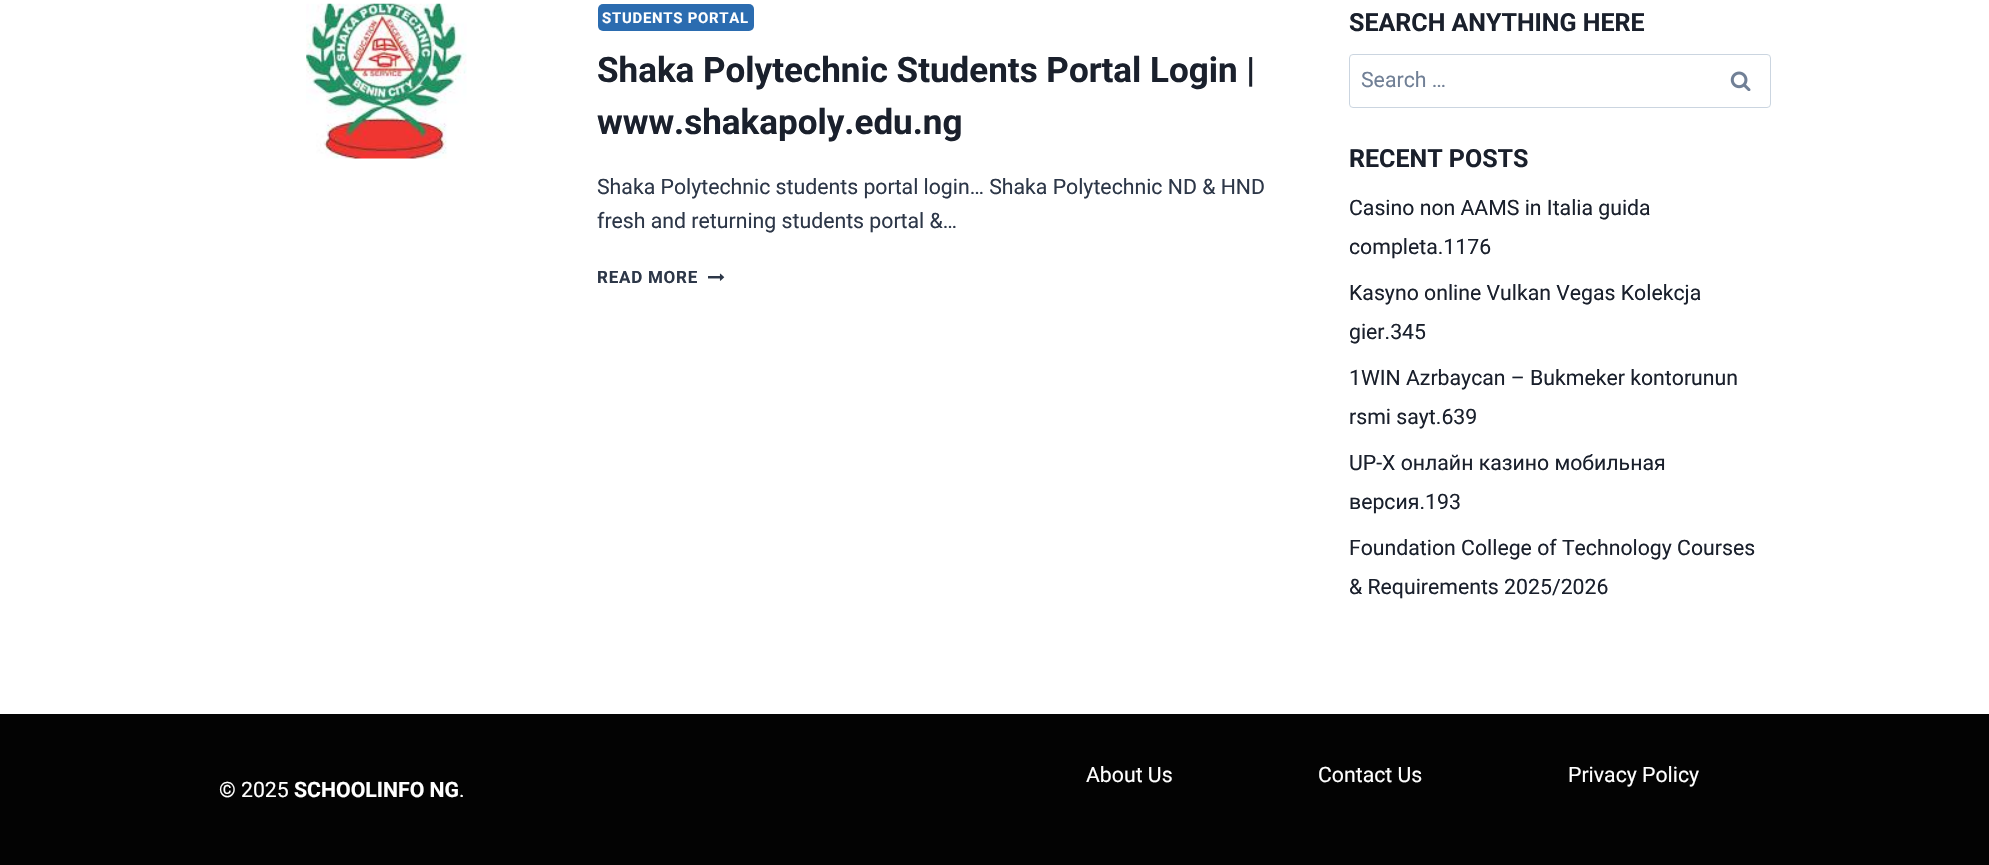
static SkFont makeFont(const char* family, int weight, float size, bool italic = false) {
  SkFontStyle style(weight, SkFontStyle::kNormal_Width,
    italic ? SkFontStyle::kItalic_Slant : SkFontStyle::kUpright_Slant);
  SkFont result(fontMgr->matchFamilyStyle(family, style), size);
  result.setSubpixel(true);
  return result;
}

static void text(SkCanvas* c, const char* s, float x, float y, const SkFont& font, SkColor color) {
  SkPaint ink(SkColor4f::FromColor(color));
  ink.setAntiAlias(true);
  c->drawString(s, x, y, font, ink);
}

static void spacedText(SkCanvas* c, const char* s, float x, float y, const SkFont& font, const SkPaint& ink, float letter, float word) {
  std::vector<SkGlyphID> glyphs(font.countText(s, strlen(s), SkTextEncoding::kUTF8));
  std::vector<float> xs(glyphs.size());
  font.textToGlyphs(s, strlen(s), SkTextEncoding::kUTF8, glyphs);
  font.getXPos(glyphs, xs, x);
  float extra = 0;
  for (size_t i = 0; i < glyphs.size(); i++) {
    xs[i] += extra;
    extra += letter + word * (glyphs[i] == font.unicharToGlyph(' '));
  }
  c->drawTextBlob(SkTextBlob::MakeFromPosHGlyphs(glyphs, xs, y, font), 0, 0, ink);
}

static void box(SkCanvas* c, float l, float t, float r, float b, SkColor color) {
  SkPaint ink(SkColor4f::FromColor(color));
  ink.setAntiAlias(true);
  c->drawRect(SkRect::MakeLTRB(l, t, r, b), ink);
}

static void roundBox(SkCanvas* c, float l, float t, float r, float b, float radius, SkColor color) {
  SkPaint ink(SkColor4f::FromColor(color));
  ink.setAntiAlias(true);
  c->drawRoundRect(SkRect::MakeLTRB(l, t, r, b), radius, radius, ink);
}

static void picture(SkCanvas* c, const char* path, float l, float t, float r, float b) {
  auto image = SkImages::DeferredFromEncodedData(SkData::MakeFromFileName(path));
  c->drawImageRect(image, SkRect::MakeLTRB(l, t, r, b), SkSamplingOptions());
}

void draw(SkCanvas* c) {
  SkPaint paint;
  paint.setAntiAlias(true);
  c->clear(0xffffffff);
  picture(c, "img_01.png", 306, 3, 467, 159);
  roundBox(c, 598, 4, 754, 31, 5, 0xff2b6cb0);
  SkFont face1 = makeFont("Roboto", 700, 14.9f);
  paint.setColor(0xffffffff);
  spacedText(c, "STUDENTS PORTAL", 602, 23, face1, paint, 0.75f, 0);
  SkFont face2 = makeFont("Roboto", 700, 35);
  text(c, "Shaka Polytechnic Students Portal Login |", 597, 82, face2, 0xff1a202c);
  text(c, "www.shakapoly.edu.ng", 597, 134, face2, 0xff1a202c);
  SkFont face3 = makeFont("Roboto", 400, 21.25f);
  text(c, "Shaka Polytechnic students portal login… Shaka Polytechnic ND & HND", 597, 194, face3, 0xff2d3748);
  text(c, "fresh and returning students portal &…", 597, 228, face3, 0xff2d3748);
  SkFont face4 = makeFont("Roboto", 700, 17);
  paint.setColor(0xff2d3748);
  spacedText(c, "READ MORE", 597, 283, face4, paint, 0.75f, 0);
  picture(c, "img_02.png", 708, 273, 725, 281);
  SkFont face5 = makeFont("Roboto", 700, 25);
  text(c, "SEARCH ANYTHING HERE", 1349, 31, face5, 0xff1a202c);
  paint.setStyle(SkPaint::kStroke_Style);
  paint.setStrokeWidth(1);
  paint.setColor(0xffcbd5e0);
  c->drawRoundRect(SkRect::MakeLTRB(1349.5f, 54.5f, 1770.5f, 107.5f), 3.5f, 3.5f, paint);
  text(c, "Search …", 1361, 87, face3, 0xff718096);
  picture(c, "img_03.png", 1730, 71, 1751, 91);
  text(c, "RECENT POSTS", 1349, 167, face5, 0xff1a202c);
  text(c, "Casino non AAMS in Italia guida", 1349, 215, face3, 0xff1a202c);
  text(c, "completa.1176", 1349, 254, face3, 0xff1a202c);
  text(c, "Kasyno online Vulkan Vegas Kolekcja", 1349, 300, face3, 0xff1a202c);
  text(c, "gier.345", 1349, 339, face3, 0xff1a202c);
  text(c, "1WIN Azrbaycan – Bukmeker kontorunun", 1349, 385, face3, 0xff1a202c);
  text(c, "rsmi sayt.639", 1349, 424, face3, 0xff1a202c);
  text(c, "UP-X онлайн казино мобильная", 1349, 470, face3, 0xff1a202c);
  text(c, "версия.193", 1349, 509, face3, 0xff1a202c);
  text(c, "Foundation College of Technology Courses", 1349, 555, face3, 0xff1a202c);
  text(c, "& Requirements 2025/2026", 1349, 594, face3, 0xff1a202c);
  box(c, 0, 714, 1989, 865, 0xff030303);
  text(c, "About Us", 1086, 782, face3, 0xffffffff);
  text(c, "Contact Us", 1318, 782, face3, 0xffffffff);
  text(c, "Privacy Policy", 1568, 782, face3, 0xffffffff);
  text(c, "© 2025", 219, 797, face3, 0xffffffff);
  SkFont face6 = makeFont("Roboto", 700, 21.25f);
  text(c, "SCHOOLINFO NG", 294, 797, face6, 0xffffffff);
  text(c, ".", 459, 797, face3, 0xffffffff);
}
